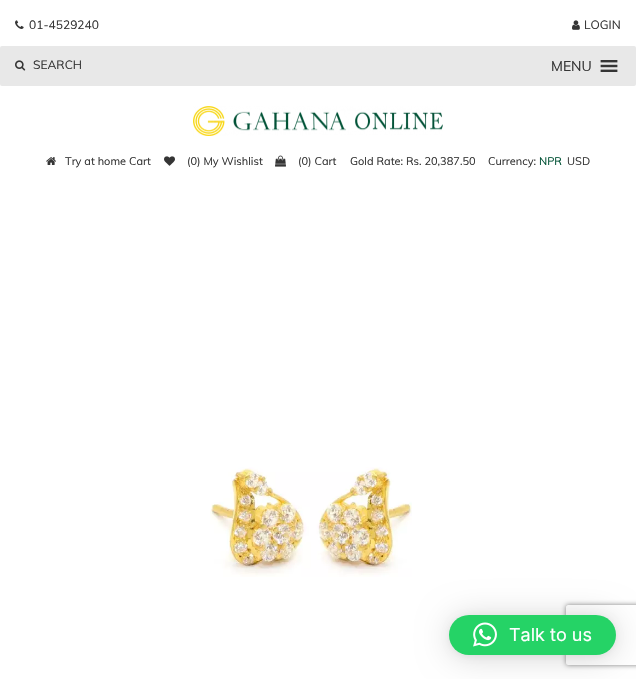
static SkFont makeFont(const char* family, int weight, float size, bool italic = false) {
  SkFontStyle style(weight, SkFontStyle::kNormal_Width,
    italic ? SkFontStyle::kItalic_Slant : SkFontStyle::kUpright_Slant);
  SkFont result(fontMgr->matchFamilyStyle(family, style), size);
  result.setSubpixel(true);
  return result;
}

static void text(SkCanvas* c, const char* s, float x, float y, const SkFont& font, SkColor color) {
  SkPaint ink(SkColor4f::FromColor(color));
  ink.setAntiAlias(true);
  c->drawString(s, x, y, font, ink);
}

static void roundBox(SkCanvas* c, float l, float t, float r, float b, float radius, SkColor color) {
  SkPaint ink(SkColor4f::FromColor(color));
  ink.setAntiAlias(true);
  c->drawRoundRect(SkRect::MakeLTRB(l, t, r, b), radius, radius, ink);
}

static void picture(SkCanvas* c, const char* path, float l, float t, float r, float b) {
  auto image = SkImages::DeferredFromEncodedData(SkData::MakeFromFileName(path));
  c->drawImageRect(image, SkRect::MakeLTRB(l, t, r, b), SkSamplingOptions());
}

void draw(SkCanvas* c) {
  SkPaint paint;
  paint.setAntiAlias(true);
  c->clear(0xffffffff);
  picture(c, "img_01.png", 15, 20, 24, 29);
  SkFont face1 = makeFont("Muli", 400, 12);
  text(c, "01-4529240", 29, 29, face1, 0xff353535);
  roundBox(c, 0, 46, 636, 86, 2, 0xffe8e8e8);
  picture(c, "img_02.png", 15, 60, 26, 71);
  text(c, "SEARCH", 33, 69, face1, 0xff353535);
  picture(c, "img_03.png", 572, 20, 580, 30);
  text(c, "LOGIN", 584, 29, face1, 0xff353535);
  SkFont face2 = makeFont("Muli", 400, 14);
  text(c, "MENU", 551, 71, face2, 0xff353535);
  picture(c, "img_04.png", 600, 60, 618, 72);
  picture(c, "img_05.png", 193, 106, 443, 136);
  picture(c, "img_06.png", 46, 157, 56, 165);
  SkFont face3 = makeFont("Muli", 400, 11);
  text(c, "Try at home Cart", 65, 165, face3, 0xff353535);
  picture(c, "img_07.png", 164, 156, 175, 166);
  text(c, "(0) My Wishlist", 187, 165, face3, 0xff353535);
  picture(c, "img_08.png", 275, 155, 286, 167);
  text(c, "(0) Cart", 298, 165, face3, 0xff353535);
  text(c, "Gold Rate: Rs. 20,387.50", 350, 165, face3, 0xff353535);
  text(c, "Currency:", 488, 165, face3, 0xff353535);
  text(c, "NPR", 539, 165, face3, 0xff005134);
  text(c, "USD", 567, 165, face3, 0xff353535);
  picture(c, "img_09.png", 210, 467, 412, 577);
  paint.setColor(0x29000000);
  paint.setMaskFilter(SkMaskFilter::MakeBlur(kNormal_SkBlurStyle, 16));
  c->drawRoundRect(SkRect::MakeLTRB(449, 617, 616, 657), 20, 20, paint);
  paint.setMaskFilter(nullptr);
  paint.setColor(0x0f000000);
  paint.setMaskFilter(SkMaskFilter::MakeBlur(kNormal_SkBlurStyle, 3));
  c->drawRoundRect(SkRect::MakeLTRB(449, 616, 616, 656), 20, 20, paint);
  paint.setMaskFilter(nullptr);
  c->save();
  c->clipPath(SkPathBuilder(SkPathFillType::kEvenOdd).moveTo(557, 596).lineTo(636, 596).lineTo(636, 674).lineTo(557, 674).close().moveTo(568, 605).lineTo(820, 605).cubicTo(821, 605, 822, 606, 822, 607).lineTo(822, 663).cubicTo(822, 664, 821, 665, 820, 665).lineTo(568, 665).cubicTo(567, 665, 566, 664, 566, 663).lineTo(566, 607).cubicTo(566, 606, 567, 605, 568, 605).close().detach(), true);
  paint.setColor(0xff808080);
  paint.setMaskFilter(SkMaskFilter::MakeBlur(kNormal_SkBlurStyle, 2.5f));
  c->drawRoundRect(SkRect::MakeLTRB(566, 605, 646, 665), 2, 2, paint);
  paint.setMaskFilter(nullptr);
  c->restore();
  roundBox(c, 449, 615, 616, 655, 20, 0xff25d366);
  picture(c, "img_10.png", 473, 622, 497, 647);
  SkFont face4 = makeFont("Inter", 400, 18);
  text(c, "Talk to us", 509, 641, face4, 0xffffffff);
}
